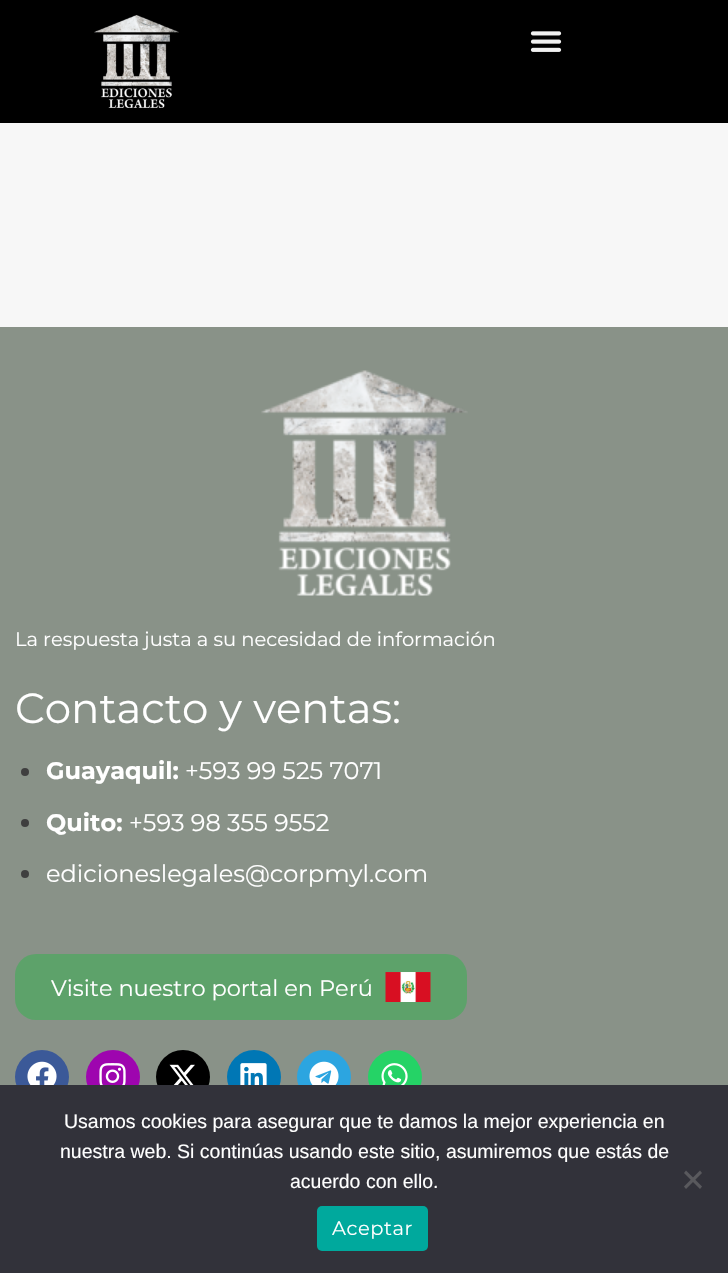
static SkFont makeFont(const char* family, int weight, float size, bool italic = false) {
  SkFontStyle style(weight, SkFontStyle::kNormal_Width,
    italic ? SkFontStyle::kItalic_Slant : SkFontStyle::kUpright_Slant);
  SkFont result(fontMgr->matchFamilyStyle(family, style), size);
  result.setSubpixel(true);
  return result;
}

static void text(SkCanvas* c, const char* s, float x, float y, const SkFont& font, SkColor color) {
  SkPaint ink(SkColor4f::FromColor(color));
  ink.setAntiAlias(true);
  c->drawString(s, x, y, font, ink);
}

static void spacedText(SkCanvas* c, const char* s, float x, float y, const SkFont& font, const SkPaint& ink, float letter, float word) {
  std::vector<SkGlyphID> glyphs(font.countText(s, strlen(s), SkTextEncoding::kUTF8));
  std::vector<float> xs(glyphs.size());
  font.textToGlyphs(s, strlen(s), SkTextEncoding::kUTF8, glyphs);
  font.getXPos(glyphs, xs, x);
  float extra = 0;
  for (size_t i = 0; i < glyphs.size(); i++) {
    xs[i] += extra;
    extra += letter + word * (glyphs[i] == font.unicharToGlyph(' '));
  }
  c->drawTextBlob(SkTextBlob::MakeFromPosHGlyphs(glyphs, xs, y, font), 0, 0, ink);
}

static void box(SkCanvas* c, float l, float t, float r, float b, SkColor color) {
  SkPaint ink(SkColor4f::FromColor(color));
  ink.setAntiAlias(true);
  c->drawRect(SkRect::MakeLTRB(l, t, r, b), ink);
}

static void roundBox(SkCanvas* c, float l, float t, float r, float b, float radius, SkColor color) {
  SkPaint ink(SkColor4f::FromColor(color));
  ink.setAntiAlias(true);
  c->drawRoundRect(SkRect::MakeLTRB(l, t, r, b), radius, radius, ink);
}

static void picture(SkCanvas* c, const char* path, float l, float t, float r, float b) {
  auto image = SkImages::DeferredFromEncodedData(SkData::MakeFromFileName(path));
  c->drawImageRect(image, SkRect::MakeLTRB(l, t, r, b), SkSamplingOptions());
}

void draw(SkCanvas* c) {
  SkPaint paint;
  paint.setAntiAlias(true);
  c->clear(0xfff7f7f7);
  box(c, 0, 0, 728, 123, 0xff000000);
  picture(c, "img_01.png", 94, 15, 179, 108);
  picture(c, "img_02.png", 530, 31, 562, 52);
  box(c, 0, 327, 728, 1085, 0xff899288);
  picture(c, "img_03.png", 261, 370, 468, 596);
  SkFont face1 = makeFont("Montserrat", 400, 19.5f);
  text(c, "La respuesta justa a su necesidad de información", 15, 646, face1, 0xffffffff);
  SkFont face2 = makeFont("Montserrat", 400, 42);
  text(c, "Contacto y ventas:", 15, 723, face2, 0xffffffff);
  paint.setColor(0xff3f3f3f);
  c->drawCircle(25, 772, 4, paint);
  SkFont face3 = makeFont("Montserrat", 700, 24);
  text(c, "Guayaquil:", 46, 779, face3, 0xffffffff);
  SkFont face4 = makeFont("Montserrat", 400, 24);
  text(c, "+593 99 525 7071", 185, 779, face4, 0xffffffff);
  c->drawCircle(25, 823, 4, paint);
  text(c, "Quito:", 46, 831, face3, 0xffffffff);
  text(c, "+593 98 355 9552", 129, 831, face4, 0xffffffff);
  c->drawCircle(25, 874, 4, paint);
  text(c, "edicioneslegales@corpmyl.com", 46, 882, face4, 0xffffffff);
  roundBox(c, 15, 954, 467, 1020, 21, 0xff5da26a);
  SkFont face5 = makeFont("Montserrat", 400, 22.5f);
  text(c, "Visite nuestro portal en Perú", 51, 996, face5, 0xffffffff);
  picture(c, "img_04.png", 385, 972, 431, 1002);
  paint.setColor(0xff3b5998);
  c->drawCircle(42, 1077, 27, paint);
  picture(c, "img_05.png", 27, 1061, 57, 1085);
  paint.setColor(0xff9e05af);
  c->drawCircle(113, 1077, 27, paint);
  picture(c, "img_06.png", 99, 1063, 126, 1085);
  paint.setColor(0xff000000);
  c->drawCircle(183, 1077, 27, paint);
  picture(c, "img_07.png", 169, 1064, 195, 1085);
  paint.setColor(0xff0077b5);
  c->drawCircle(254, 1077, 27, paint);
  picture(c, "img_08.png", 240, 1063, 267, 1085);
  paint.setColor(0xff2ca5e0);
  c->drawCircle(324, 1077, 27, paint);
  picture(c, "img_09.png", 309, 1061, 339, 1085);
  paint.setColor(0xff25d366);
  c->drawCircle(395, 1077, 27, paint);
  picture(c, "img_10.png", 381, 1063, 408, 1085);
  box(c, 0, 1085, 728, 1273, 0xff32323a);
  SkFont face6 = makeFont("Liberation Sans", 400, 19.5f);
  text(c, "Usamos cookies para asegurar que te damos la mejor experiencia en", 64, 1128, face6, 0xffffffff);
  text(c, "nuestra web. Si continúas usando este sitio, asumiremos que estás de", 60, 1158, face6, 0xffffffff);
  text(c, "acuerdo con ello.", 290, 1188, face6, 0xffffffff);
  paint.setColor(0xff59595d);
  c->drawPath(SkPathBuilder().moveTo(700, 1170.5f).lineTo(702, 1173).lineTo(686, 1189).lineTo(684, 1186.5f).close().detach(), paint);
  c->drawPath(SkPathBuilder().moveTo(684, 1173).lineTo(686, 1170.5f).lineTo(702, 1186.5f).lineTo(700, 1189).close().detach(), paint);
  roundBox(c, 317, 1206, 428, 1251, 5, 0xff00a99d);
  paint.setColor(0xffffffff);
  spacedText(c, "Aceptar", 332, 1235, face1, paint, 0.5f, 0);
}
